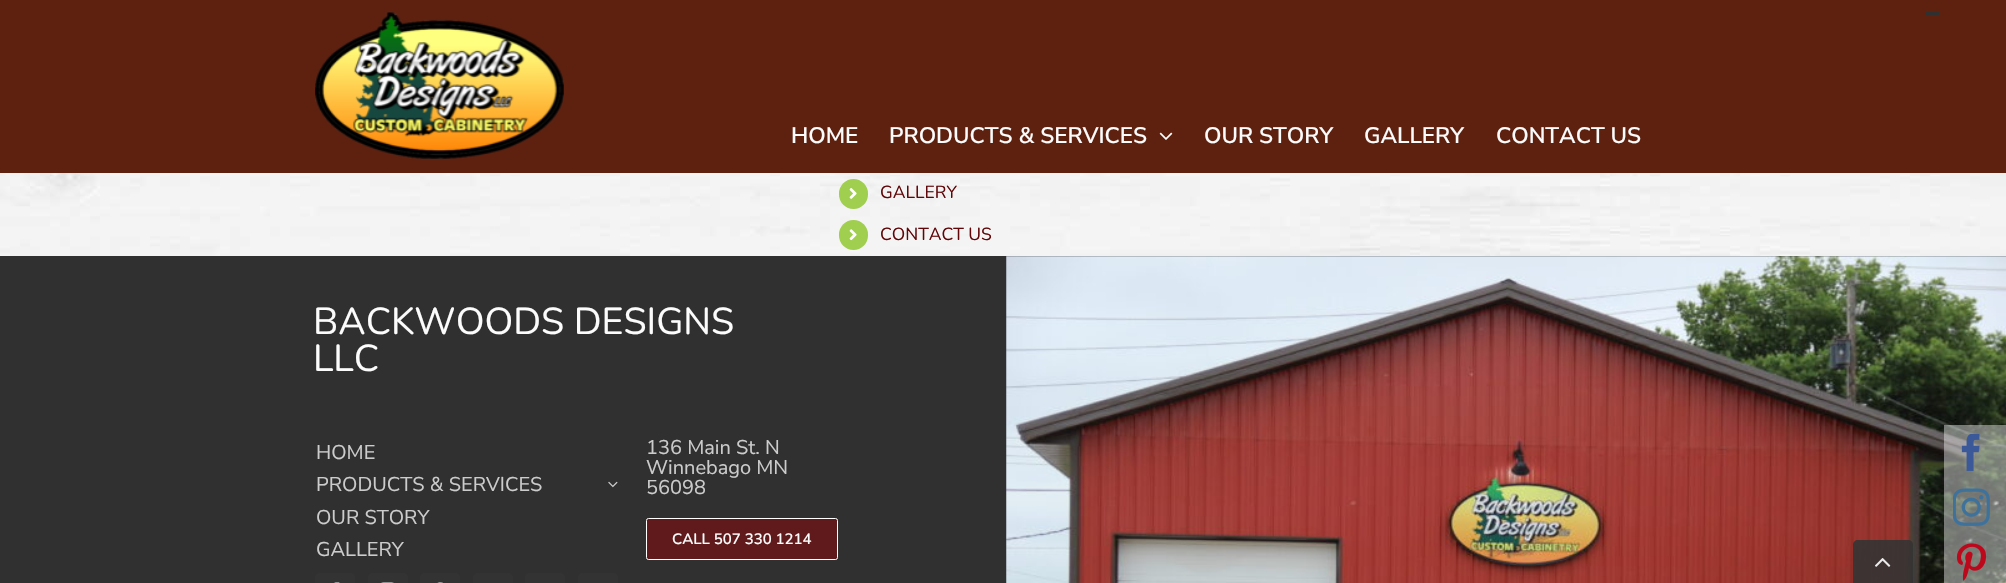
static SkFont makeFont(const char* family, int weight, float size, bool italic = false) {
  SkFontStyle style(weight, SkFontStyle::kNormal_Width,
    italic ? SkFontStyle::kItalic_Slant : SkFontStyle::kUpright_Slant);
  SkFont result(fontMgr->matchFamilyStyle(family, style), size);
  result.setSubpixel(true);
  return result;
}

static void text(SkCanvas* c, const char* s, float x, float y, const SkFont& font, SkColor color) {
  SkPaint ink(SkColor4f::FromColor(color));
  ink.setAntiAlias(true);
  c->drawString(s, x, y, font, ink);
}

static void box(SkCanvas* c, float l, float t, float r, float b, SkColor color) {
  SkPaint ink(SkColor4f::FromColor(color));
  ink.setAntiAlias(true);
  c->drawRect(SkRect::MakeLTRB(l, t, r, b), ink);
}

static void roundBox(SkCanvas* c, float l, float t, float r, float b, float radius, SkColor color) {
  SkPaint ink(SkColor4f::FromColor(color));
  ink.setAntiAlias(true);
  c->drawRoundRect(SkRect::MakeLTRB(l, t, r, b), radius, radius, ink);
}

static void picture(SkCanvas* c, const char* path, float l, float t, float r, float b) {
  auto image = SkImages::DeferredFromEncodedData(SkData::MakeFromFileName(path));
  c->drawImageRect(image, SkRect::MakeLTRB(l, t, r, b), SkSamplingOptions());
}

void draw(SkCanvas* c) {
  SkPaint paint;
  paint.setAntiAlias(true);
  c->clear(0xffffffff);
  box(c, 0, 0, 2006, 173, 0xff5e2110);
  picture(c, "img_01.png", 315, 12, 564, 159);
  SkFont face1 = makeFont("Nunito Sans", 600, 22.5f);
  text(c, "HOME", 791, 143, face1, 0xfffcfcfc);
  text(c, "PRODUCTS & SERVICES", 889, 143, face1, 0xfffcfcfc);
  picture(c, "img_02.png", 1159, 132, 1173, 140);
  text(c, "OUR STORY", 1204, 143, face1, 0xfffcfcfc);
  text(c, "GALLERY", 1364, 143, face1, 0xfffcfcfc);
  text(c, "CONTACT US", 1496, 143, face1, 0xfffcfcfc);
  box(c, 1926, 12, 1939, 15, 0xff303030);
  box(c, 0, 256, 2006, 583, 0xff303030);
  picture(c, "img_09.png", 1006, 256, 2006, 583);
  box(c, 1944, 425, 2006, 583, 0x6bffffff);
  picture(c, "img_03.png", 1961, 434, 1980, 471);
  picture(c, "img_04.png", 1953, 488, 1990, 526);
  picture(c, "img_05.png", 1956, 543, 1987, 581);
  picture(c, "img_06.png", 0, 173, 2006, 256);
  roundBox(c, 839, 179, 868, 209, 14.5f, 0xffa0ce4e);
  picture(c, "img_07.png", 849, 188, 857, 199);
  SkFont face2 = makeFont("Nunito", 400, 17.5f);
  text(c, "GALLERY", 880, 198, face2, 0xff600608);
  roundBox(c, 839, 220, 868, 250, 14.5f, 0xffa0ce4e);
  picture(c, "img_08.png", 849, 229, 857, 241);
  text(c, "CONTACT US", 880, 240, face2, 0xff600608);
  SkFont face3 = makeFont("Nunito", 400, 37.5f);
  text(c, "BACKWOODS DESIGNS", 313, 334, face3, 0xfffcfcfc);
  text(c, "LLC", 313, 371, face3, 0xfffcfcfc);
  SkFont face4 = makeFont("Nunito Sans", 400, 20);
  text(c, "HOME", 316, 459, face4, 0xffcccccc);
  text(c, "PRODUCTS & SERVICES", 316, 491, face4, 0xffcccccc);
  picture(c, "img_10.png", 608, 481, 618, 488);
  text(c, "OUR STORY", 316, 524, face4, 0xffcccccc);
  text(c, "GALLERY", 316, 556, face4, 0xffcccccc);
  roundBox(c, 315, 573, 355, 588, 5, 0xff333333);
  picture(c, "img_11.png", 334, 582, 340, 583);
  roundBox(c, 368, 573, 408, 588, 5, 0xff333333);
  picture(c, "img_12.png", 381, 582, 394, 583);
  roundBox(c, 420, 573, 460, 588, 5, 0xff333333);
  picture(c, "img_13.png", 437, 582, 443, 583);
  roundBox(c, 473, 573, 513, 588, 5, 0xff333333);
  roundBox(c, 525, 573, 565, 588, 5, 0xff333333);
  roundBox(c, 578, 573, 618, 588, 5, 0xff333333);
  text(c, "136 Main St. N", 646, 454, face4, 0xffcccccc);
  text(c, "Winnebago MN", 646, 474, face4, 0xffcccccc);
  text(c, "56098", 646, 494, face4, 0xffcccccc);
  paint.setColor(0xff601a1b);
  c->drawRoundRect(SkRect::MakeLTRB(646.5f, 518.5f, 837.5f, 559.5f), 2, 2, paint);
  paint.setStyle(SkPaint::kStroke_Style);
  paint.setStrokeWidth(1);
  paint.setColor(0xffffffff);
  c->drawRoundRect(SkRect::MakeLTRB(646.5f, 518.5f, 837.5f, 559.5f), 2, 2, paint);
  SkFont face5 = makeFont("Nunito", 600, 15);
  text(c, "CALL 507 330 1214", 672, 544, face5, 0xfffcfcfc);
  paint.setStyle(SkPaint::kFill_Style);
  paint.setColor(0xe6333333);
  c->drawPath(SkPathBuilder().moveTo(1858, 540).lineTo(1908, 540).cubicTo(1911, 540, 1913, 542, 1913, 545).lineTo(1913, 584).lineTo(1853, 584).lineTo(1853, 545).cubicTo(1853, 542, 1855, 540, 1858, 540).close().detach(), paint);
  picture(c, "img_14.png", 1875, 558, 1891, 567);
}
